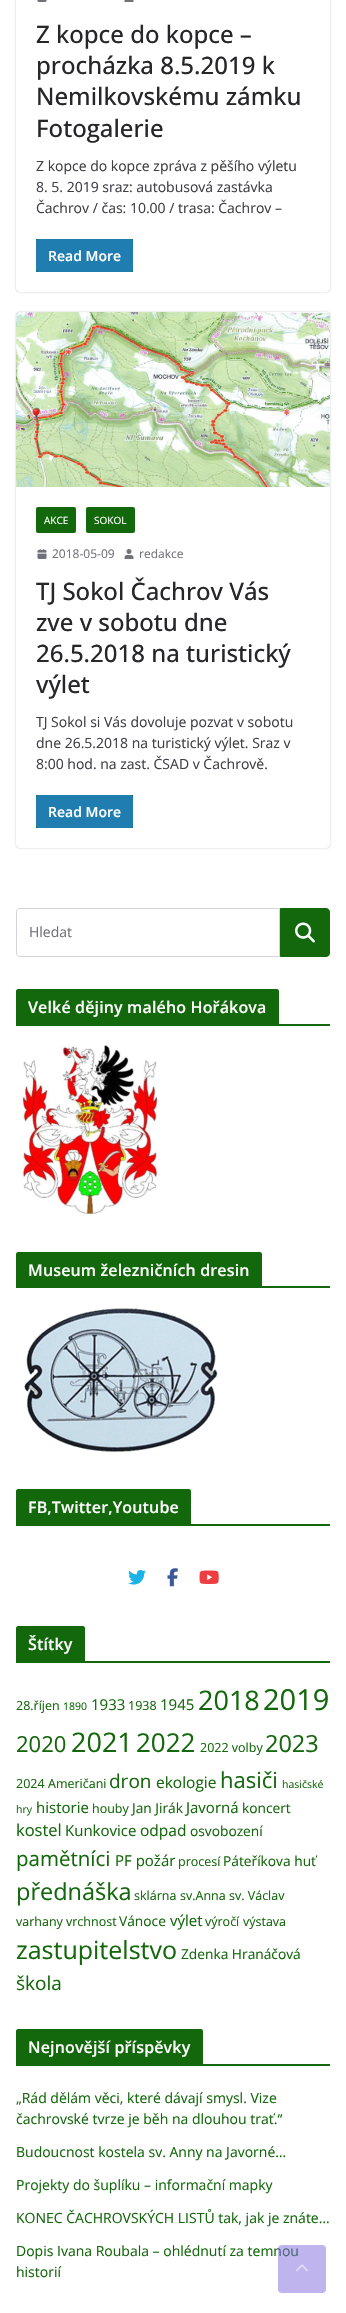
static SkFont makeFont(const char* family, int weight, float size, bool italic = false) {
  SkFontStyle style(weight, SkFontStyle::kNormal_Width,
    italic ? SkFontStyle::kItalic_Slant : SkFontStyle::kUpright_Slant);
  SkFont result(fontMgr->matchFamilyStyle(family, style), size);
  result.setSubpixel(true);
  return result;
}

static void text(SkCanvas* c, const char* s, float x, float y, const SkFont& font, SkColor color) {
  SkPaint ink(SkColor4f::FromColor(color));
  ink.setAntiAlias(true);
  c->drawString(s, x, y, font, ink);
}

static void spacedText(SkCanvas* c, const char* s, float x, float y, const SkFont& font, const SkPaint& ink, float letter, float word) {
  std::vector<SkGlyphID> glyphs(font.countText(s, strlen(s), SkTextEncoding::kUTF8));
  std::vector<float> xs(glyphs.size());
  font.textToGlyphs(s, strlen(s), SkTextEncoding::kUTF8, glyphs);
  font.getXPos(glyphs, xs, x);
  float extra = 0;
  for (size_t i = 0; i < glyphs.size(); i++) {
    xs[i] += extra;
    extra += letter + word * (glyphs[i] == font.unicharToGlyph(' '));
  }
  c->drawTextBlob(SkTextBlob::MakeFromPosHGlyphs(glyphs, xs, y, font), 0, 0, ink);
}

static void box(SkCanvas* c, float l, float t, float r, float b, SkColor color) {
  SkPaint ink(SkColor4f::FromColor(color));
  ink.setAntiAlias(true);
  c->drawRect(SkRect::MakeLTRB(l, t, r, b), ink);
}

static void roundBox(SkCanvas* c, float l, float t, float r, float b, float radius, SkColor color) {
  SkPaint ink(SkColor4f::FromColor(color));
  ink.setAntiAlias(true);
  c->drawRoundRect(SkRect::MakeLTRB(l, t, r, b), radius, radius, ink);
}

static void picture(SkCanvas* c, const char* path, float l, float t, float r, float b) {
  auto image = SkImages::DeferredFromEncodedData(SkData::MakeFromFileName(path));
  c->drawImageRect(image, SkRect::MakeLTRB(l, t, r, b), SkSamplingOptions());
}

void draw(SkCanvas* c) {
  SkPaint paint;
  paint.setAntiAlias(true);
  c->clear(0xffffffff);
  c->save();
  c->clipPath(SkPathBuilder(SkPathFillType::kEvenOdd).moveTo(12, 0).lineTo(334, 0).lineTo(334, 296).lineTo(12, 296).close().moveTo(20, -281).lineTo(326, -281).cubicTo(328, -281, 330, -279, 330, -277).lineTo(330, 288).cubicTo(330, 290, 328, 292, 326, 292).lineTo(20, 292).cubicTo(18, 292, 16, 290, 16, 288).lineTo(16, -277).cubicTo(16, -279, 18, -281, 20, -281).close().detach(), true);
  paint.setColor(0x3d000000);
  paint.setMaskFilter(SkMaskFilter::MakeBlur(kNormal_SkBlurStyle, 1));
  c->drawRoundRect(SkRect::MakeLTRB(16, -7, 330, 292), 4, 4, paint);
  paint.setMaskFilter(nullptr);
  c->restore();
  picture(c, "img_01.png", 37, 0, 47, 2);
  picture(c, "img_02.png", 124, 0, 134, 2);
  SkFont face1 = makeFont("Open Sans", 500, 24);
  text(c, "Z kopce do kopce –", 36, 43, face1, 0xff27272a);
  text(c, "procházka 8.5.2019 k", 36, 74, face1, 0xff27272a);
  text(c, "Nemilkovskému zámku", 36, 105, face1, 0xff27272a);
  text(c, "Fotogalerie", 36, 137, face1, 0xff27272a);
  SkFont face2 = makeFont("Open Sans", 400, 14);
  text(c, "Z kopce do kopce zpráva z pěšího výletu", 36, 171, face2, 0xff3f3f46);
  text(c, "8. 5. 2019 sraz: autobusová zastávka", 36, 192, face2, 0xff3f3f46);
  text(c, "Čachrov / čas: 10.00 / trasa: Čachrov –", 36, 213, face2, 0xff3f3f46);
  box(c, 36, 239, 133, 272, 0xff14680c);
  roundBox(c, 36, 239, 133, 272, 2, 0xff207daf);
  SkFont face3 = makeFont("Open Sans", 600, 14);
  text(c, "Read More", 48, 261, face3, 0xffffffff);
  c->save();
  c->clipPath(SkPathBuilder(SkPathFillType::kEvenOdd).moveTo(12, 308).lineTo(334, 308).lineTo(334, 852).lineTo(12, 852).close().moveTo(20, 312).lineTo(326, 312).cubicTo(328, 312, 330, 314, 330, 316).lineTo(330, 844).cubicTo(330, 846, 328, 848, 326, 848).lineTo(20, 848).cubicTo(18, 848, 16, 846, 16, 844).lineTo(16, 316).cubicTo(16, 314, 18, 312, 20, 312).close().detach(), true);
  paint.setMaskFilter(SkMaskFilter::MakeBlur(kNormal_SkBlurStyle, 1));
  c->drawRoundRect(SkRect::MakeLTRB(16, 312, 330, 848), 4, 4, paint);
  paint.setMaskFilter(nullptr);
  c->restore();
  picture(c, "img_03.png", 16, 312, 330, 487);
  roundBox(c, 36, 507, 76, 533, 2, 0xff14680c);
  SkFont face4 = makeFont("Open Sans", 400, 10);
  text(c, "AKCE", 44, 524, face4, 0xffffffff);
  roundBox(c, 86, 507, 135, 533, 2, 0xff14680c);
  text(c, "SOKOL", 94, 524, face4, 0xffffffff);
  picture(c, "img_04.png", 37, 549, 47, 559);
  SkFont face5 = makeFont("Open Sans", 400, 12);
  text(c, "2018-05-09", 52, 558, face5, 0xff71717a);
  picture(c, "img_05.png", 124, 549, 134, 559);
  text(c, "redakce", 139, 558, face5, 0xff71717a);
  text(c, "TJ Sokol Čachrov Vás", 36, 600, face1, 0xff27272a);
  text(c, "zve v sobotu dne", 36, 631, face1, 0xff27272a);
  text(c, "26.5.2018 na turistický", 36, 662, face1, 0xff27272a);
  text(c, "výlet", 36, 693, face1, 0xff27272a);
  text(c, "TJ Sokol si Vás dovoluje pozvat v sobotu", 36, 727, face2, 0xff3f3f46);
  text(c, "dne 26.5.2018 na turistický výlet. Sraz v", 36, 748, face2, 0xff3f3f46);
  text(c, "8:00 hod. na zast. ČSAD v Čachrově.", 36, 769, face2, 0xff3f3f46);
  box(c, 36, 795, 133, 828, 0xff14680c);
  roundBox(c, 36, 795, 133, 828, 2, 0xff207daf);
  text(c, "Read More", 48, 817, face3, 0xffffffff);
  paint.setStyle(SkPaint::kStroke_Style);
  paint.setStrokeWidth(1);
  paint.setColor(0xffd4d4d8);
  c->drawPath(SkPathBuilder().moveTo(20, 908.5f).lineTo(279.5f, 908.5f).lineTo(279.5f, 956.5f).lineTo(20, 956.5f).cubicTo(18, 956.5f, 16.5f, 955, 16.5f, 953).lineTo(16.5f, 912).cubicTo(16.5f, 910, 18, 908.5f, 20, 908.5f).close().detach(), paint);
  text(c, "Hledat", 29, 937, face2, 0xff71717a);
  paint.setStyle(SkPaint::kFill_Style);
  paint.setColor(0xff14680c);
  c->drawPath(SkPathBuilder().moveTo(280.5f, 908.5f).lineTo(326, 908.5f).cubicTo(328, 908.5f, 329.5f, 910, 329.5f, 912).lineTo(329.5f, 953).cubicTo(329.5f, 955, 328, 956.5f, 326, 956.5f).lineTo(280.5f, 956.5f).close().detach(), paint);
  paint.setStyle(SkPaint::kStroke_Style);
  c->drawPath(SkPathBuilder().moveTo(280.5f, 908.5f).lineTo(326, 908.5f).cubicTo(328, 908.5f, 329.5f, 910, 329.5f, 912).lineTo(329.5f, 953).cubicTo(329.5f, 955, 328, 956.5f, 326, 956.5f).lineTo(280.5f, 956.5f).close().detach(), paint);
  picture(c, "img_06.png", 295, 922, 315, 943);
  box(c, 16, 1024, 330, 1026, 0xff14680c);
  paint.setStyle(SkPaint::kFill_Style);
  c->drawPath(SkPathBuilder().moveTo(18, 989).lineTo(277, 989).cubicTo(278, 989, 279, 990, 279, 991).lineTo(279, 1024).lineTo(16, 1024).lineTo(16, 991).cubicTo(16, 990, 17, 989, 18, 989).close().detach(), paint);
  SkFont face6 = makeFont("Open Sans", 600, 16);
  paint.setColor(0xffffffff);
  spacedText(c, "Velké dějiny malého Hořákova", 28, 1013, face6, paint, 0.15f, 0);
  picture(c, "img_07.png", 22, 1045, 158, 1215);
  box(c, 16, 1286, 330, 1288, 0xff14680c);
  paint.setColor(0xff14680c);
  c->drawPath(SkPathBuilder().moveTo(18, 1252).lineTo(260, 1252).cubicTo(261, 1252, 262, 1253, 262, 1254).lineTo(262, 1286).lineTo(16, 1286).lineTo(16, 1254).cubicTo(16, 1253, 17, 1252, 18, 1252).close().detach(), paint);
  paint.setColor(0xffffffff);
  spacedText(c, "Museum železničních dresin", 28, 1276, face6, paint, 0.15f, 0);
  picture(c, "img_08.png", 24, 1308, 218, 1452);
  box(c, 16, 1524, 330, 1526, 0xff14680c);
  paint.setColor(0xff14680c);
  c->drawPath(SkPathBuilder().moveTo(18, 1489).lineTo(189, 1489).cubicTo(190, 1489, 191, 1490, 191, 1491).lineTo(191, 1524).lineTo(16, 1524).lineTo(16, 1491).cubicTo(16, 1490, 17, 1489, 18, 1489).close().detach(), paint);
  paint.setColor(0xffffffff);
  spacedText(c, "FB,Twitter,Youtube", 28, 1513, face6, paint, 0.15f, 0);
  picture(c, "img_09.png", 128, 1570, 146, 1585);
  picture(c, "img_10.png", 167, 1568, 178, 1587);
  picture(c, "img_11.png", 199, 1570, 219, 1584);
  box(c, 16, 1661, 330, 1663, 0xff14680c);
  paint.setColor(0xff14680c);
  c->drawPath(SkPathBuilder().moveTo(18, 1626).lineTo(83, 1626).cubicTo(84, 1626, 85, 1627, 85, 1628).lineTo(85, 1661).lineTo(16, 1661).lineTo(16, 1628).cubicTo(16, 1627, 17, 1626, 18, 1626).close().detach(), paint);
  paint.setColor(0xffffffff);
  spacedText(c, "Štítky", 28, 1650, face6, paint, 0.15f, 0);
  SkFont face7 = makeFont("Open Sans", 400, 12.5f);
  text(c, "28.říjen", 16, 1710, face7, 0xff14680c);
  SkFont face8 = makeFont("Open Sans", 400, 10.5f);
  text(c, "1890", 63, 1710, face8, 0xff14680c);
  SkFont face9 = makeFont("Open Sans", 400, 15);
  text(c, "1933", 91, 1710, face9, 0xff14680c);
  text(c, "1938", 128, 1710, face7, 0xff14680c);
  text(c, "1945", 160, 1710, face9, 0xff14680c);
  SkFont face10 = makeFont("Open Sans", 400, 27);
  text(c, "2018", 198, 1710, face10, 0xff14680c);
  SkFont face11 = makeFont("Open Sans", 400, 29);
  text(c, "2019", 263, 1710, face11, 0xff14680c);
  SkFont face12 = makeFont("Open Sans", 400, 22);
  text(c, "2020", 16, 1752, face12, 0xff14680c);
  text(c, "2021", 71, 1752, face10, 0xff14680c);
  SkFont face13 = makeFont("Open Sans", 400, 26);
  text(c, "2022", 136, 1752, face13, 0xff14680c);
  text(c, "2022 volby", 200, 1752, face7, 0xff14680c);
  SkFont face14 = makeFont("Open Sans", 400, 23.5f);
  text(c, "2023", 265, 1752, face14, 0xff14680c);
  text(c, "2024", 16, 1788, face7, 0xff14680c);
  text(c, "Američani", 48, 1788, face7, 0xff14680c);
  SkFont face15 = makeFont("Open Sans", 400, 19);
  text(c, "dron", 109, 1788, face15, 0xff14680c);
  SkFont face16 = makeFont("Open Sans", 400, 15.5f);
  text(c, "ekologie", 156, 1788, face16, 0xff14680c);
  text(c, "hasiči", 220, 1788, face12, 0xff14680c);
  text(c, "hasičské", 282, 1788, face8, 0xff14680c);
  text(c, "hry", 16, 1813, face8, 0xff14680c);
  text(c, "historie", 36, 1813, face9, 0xff14680c);
  text(c, "houby", 92, 1813, face7, 0xff14680c);
  SkFont face17 = makeFont("Open Sans", 400, 13.75f);
  text(c, "Jan Jirák", 132, 1813, face17, 0xff14680c);
  text(c, "Javorná", 186, 1813, face9, 0xff14680c);
  text(c, "koncert", 242, 1813, face17, 0xff14680c);
  SkFont face18 = makeFont("Open Sans", 400, 16.5f);
  text(c, "kostel", 16, 1836, face18, 0xff14680c);
  text(c, "Kunkovice", 65, 1836, face9, 0xff14680c);
  text(c, "odpad", 140, 1836, face16, 0xff14680c);
  text(c, "osvobození", 190, 1836, face17, 0xff14680c);
  SkFont face19 = makeFont("Open Sans", 400, 20.5f);
  text(c, "pamětníci", 16, 1866, face19, 0xff14680c);
  text(c, "PF požár", 115, 1866, face9, 0xff14680c);
  text(c, "procesí", 178, 1866, face7, 0xff14680c);
  text(c, "Páteříkova huť", 223, 1866, face17, 0xff14680c);
  text(c, "přednáška", 16, 1900, face14, 0xff14680c);
  text(c, "sklárna", 134, 1900, face7, 0xff14680c);
  text(c, "sv.Anna", 180, 1900, face7, 0xff14680c);
  text(c, "sv. Václav", 229, 1900, face7, 0xff14680c);
  text(c, "varhany", 16, 1926, face7, 0xff14680c);
  text(c, "vrchnost", 66, 1926, face7, 0xff14680c);
  text(c, "Vánoce", 119, 1926, face17, 0xff14680c);
  text(c, "výlet", 170, 1926, face9, 0xff14680c);
  text(c, "výročí", 205, 1926, face7, 0xff14680c);
  text(c, "výstava", 243, 1926, face7, 0xff14680c);
  SkFont face20 = makeFont("Open Sans", 400, 25);
  text(c, "zastupitelstvo", 16, 1959, face20, 0xff14680c);
  text(c, "Zdenka Hranáčová", 181, 1959, face17, 0xff14680c);
  text(c, "škola", 16, 1990, face15, 0xff14680c);
  box(c, 16, 2064, 330, 2066, 0xff14680c);
  paint.setColor(0xff14680c);
  c->drawPath(SkPathBuilder().moveTo(18, 2029).lineTo(201, 2029).cubicTo(202, 2029, 203, 2030, 203, 2031).lineTo(203, 2064).lineTo(16, 2064).lineTo(16, 2031).cubicTo(16, 2030, 17, 2029, 18, 2029).close().detach(), paint);
  paint.setColor(0xffffffff);
  spacedText(c, "Nejnovější příspěvky", 28, 2053, face6, paint, 0.15f, 0);
  text(c, "„Rád dělám věci, které dávají smysl. Vize", 16, 2103, face2, 0xff14680c);
  text(c, "čachrovské tvrze je běh na dlouhou trať.“", 16, 2124, face2, 0xff14680c);
  text(c, "Budoucnost kostela sv. Anny na Javorné…", 16, 2157, face2, 0xff14680c);
  text(c, "Projekty do šuplíku – informační mapky", 16, 2190, face2, 0xff14680c);
  text(c, "KONEC ČACHROVSKÝCH LISTŮ tak, jak je znáte…", 16, 2223, face2, 0xff14680c);
  text(c, "Dopis Ivana Roubala – ohlédnutí za temnou", 16, 2256, face2, 0xff14680c);
  text(c, "historií", 16, 2277, face2, 0xff14680c);
  roundBox(c, 278, 2245, 326, 2293, 4, 0x808269df);
  picture(c, "img_12.png", 296, 2264, 308, 2272);
}
